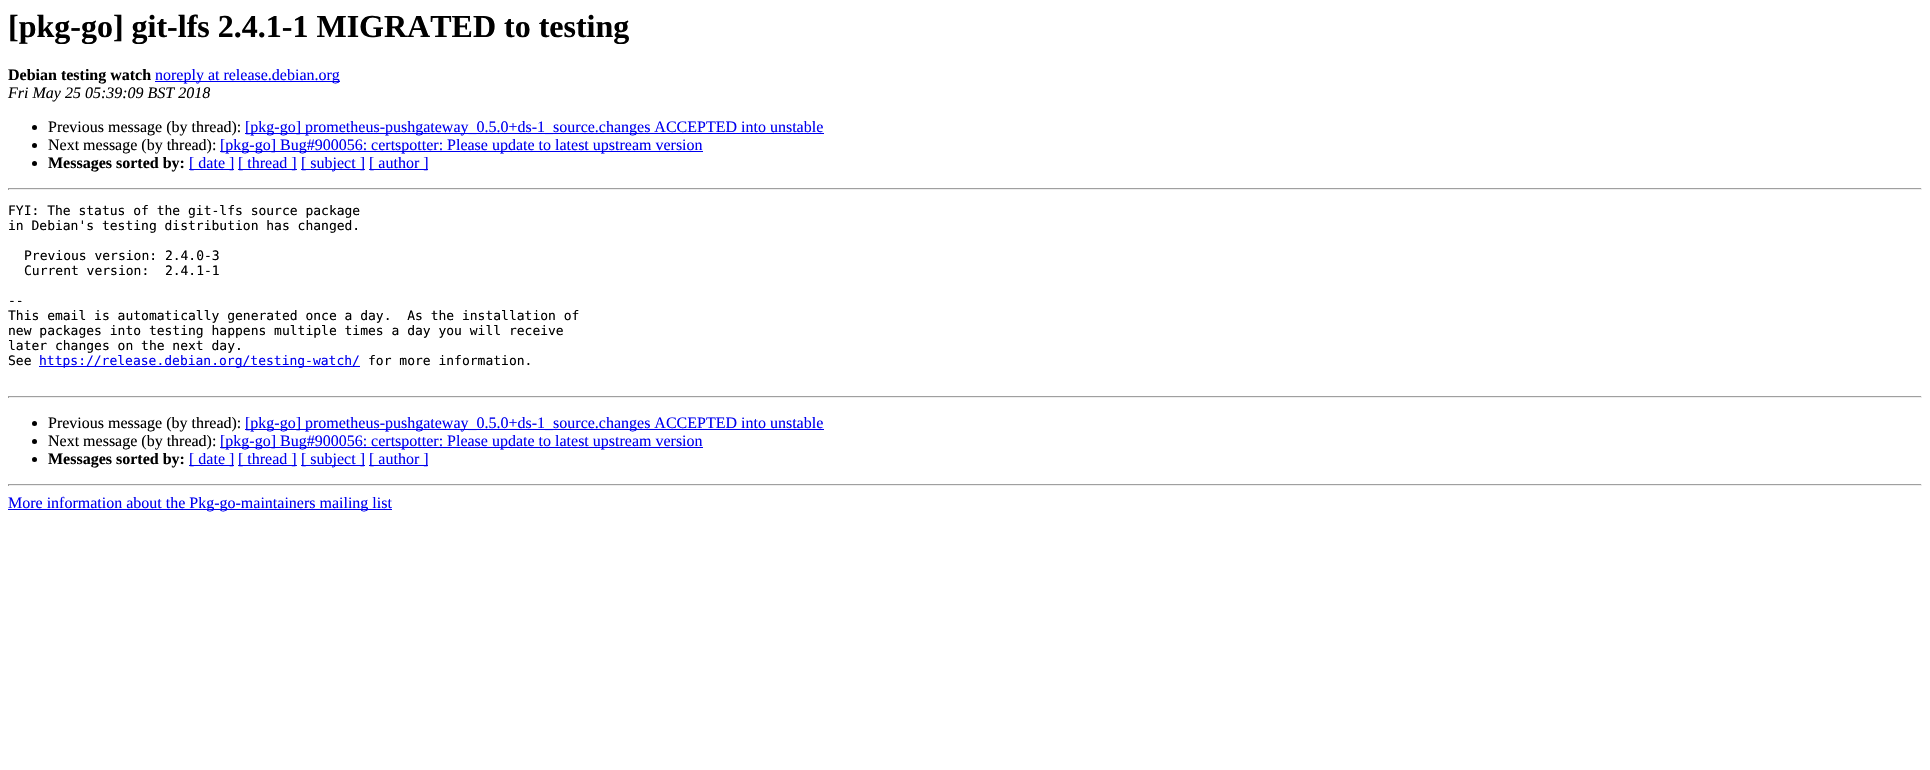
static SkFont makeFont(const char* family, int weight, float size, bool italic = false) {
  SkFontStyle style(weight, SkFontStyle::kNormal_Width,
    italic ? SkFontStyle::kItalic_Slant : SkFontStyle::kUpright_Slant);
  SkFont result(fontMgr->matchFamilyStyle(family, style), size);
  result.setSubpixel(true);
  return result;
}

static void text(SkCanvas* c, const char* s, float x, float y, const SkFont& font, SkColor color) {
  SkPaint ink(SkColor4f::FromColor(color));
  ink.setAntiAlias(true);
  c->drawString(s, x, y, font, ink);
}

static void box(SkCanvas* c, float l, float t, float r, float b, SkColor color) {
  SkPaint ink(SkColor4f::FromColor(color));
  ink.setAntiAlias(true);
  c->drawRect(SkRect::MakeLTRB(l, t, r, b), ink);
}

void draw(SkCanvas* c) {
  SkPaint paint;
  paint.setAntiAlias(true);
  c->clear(0xffffffff);
  SkFont face1 = makeFont("Liberation Serif", 700, 32);
  text(c, "[pkg-go] git-lfs 2.4.1-1 MIGRATED to testing", 8, 37, face1, 0xff000000);
  SkFont face2 = makeFont("Liberation Serif", 700, 16);
  text(c, "Debian testing watch", 8, 80, face2, 0xff000000);
  box(c, 155, 81, 340, 82, 0xff0000ee);
  SkFont face3 = makeFont("Liberation Serif", 400, 16);
  text(c, "noreply at release.debian.org", 155, 80, face3, 0xff0000ee);
  SkFont face4 = makeFont("Liberation Serif", 400, 16, true);
  text(c, "Fri May 25 05:39:09 BST 2018", 8, 98, face4, 0xff000000);
  paint.setColor(0xff000000);
  c->drawCircle(34.5f, 127.5f, 2.5f, paint);
  text(c, "Previous message (by thread):", 48, 132, face3, 0xff000000);
  box(c, 245, 133, 824, 134, 0xff0000ee);
  text(c, "[pkg-go] prometheus-pushgateway_0.5.0+ds-1_source.changes ACCEPTED into unstable", 245, 132, face3, 0xff0000ee);
  c->drawCircle(34.5f, 145.5f, 2.5f, paint);
  text(c, "Next message (by thread):", 48, 150, face3, 0xff000000);
  box(c, 220, 151, 703, 152, 0xff0000ee);
  text(c, "[pkg-go] Bug#900056: certspotter: Please update to latest upstream version", 220, 150, face3, 0xff0000ee);
  c->drawCircle(34.5f, 163.5f, 2.5f, paint);
  text(c, "Messages sorted by:", 48, 168, face2, 0xff000000);
  box(c, 189, 169, 234, 170, 0xff0000ee);
  text(c, "[ date ]", 189, 168, face3, 0xff0000ee);
  box(c, 238, 169, 297, 170, 0xff0000ee);
  text(c, "[ thread ]", 238, 168, face3, 0xff0000ee);
  box(c, 301, 169, 365, 170, 0xff0000ee);
  text(c, "[ subject ]", 301, 168, face3, 0xff0000ee);
  box(c, 369, 169, 428, 170, 0xff0000ee);
  text(c, "[ author ]", 369, 168, face3, 0xff0000ee);
  box(c, 8, 188, 1922, 189, 0xff9f9f9f);
  box(c, 1921, 188, 1922, 190, 0xffeeeeee);
  box(c, 8, 189, 1922, 190, 0xffeeeeee);
  box(c, 8, 188, 9, 190, 0xff9f9f9f);
  SkFont face5 = makeFont("DejaVu Sans Mono", 400, 13);
  text(c, "FYI: The status of the git-lfs source package", 8, 215, face5, 0xff000000);
  text(c, "in Debian's testing distribution has changed.", 8, 230, face5, 0xff000000);
  text(c, "Previous version: 2.4.0-3", 24, 260, face5, 0xff000000);
  text(c, "Current version:  2.4.1-1", 24, 275, face5, 0xff000000);
  text(c, "--", 8, 305, face5, 0xff000000);
  text(c, "This email is automatically generated once a day.  As the installation of", 8, 320, face5, 0xff000000);
  text(c, "new packages into testing happens multiple times a day you will receive", 8, 335, face5, 0xff000000);
  text(c, "later changes on the next day.", 8, 350, face5, 0xff000000);
  text(c, "See", 8, 365, face5, 0xff000000);
  box(c, 39, 366, 360, 367, 0xff0000ee);
  text(c, "https://release.debian.org/testing-watch/", 39, 365, face5, 0xff0000ee);
  text(c, "for more information.", 368, 365, face5, 0xff000000);
  box(c, 8, 396, 1922, 397, 0xff9f9f9f);
  box(c, 1921, 396, 1922, 398, 0xffeeeeee);
  box(c, 8, 397, 1922, 398, 0xffeeeeee);
  box(c, 8, 396, 9, 398, 0xff9f9f9f);
  c->drawCircle(34.5f, 423.5f, 2.5f, paint);
  text(c, "Previous message (by thread):", 48, 428, face3, 0xff000000);
  box(c, 245, 429, 824, 430, 0xff0000ee);
  text(c, "[pkg-go] prometheus-pushgateway_0.5.0+ds-1_source.changes ACCEPTED into unstable", 245, 428, face3, 0xff0000ee);
  c->drawCircle(34.5f, 441.5f, 2.5f, paint);
  text(c, "Next message (by thread):", 48, 446, face3, 0xff000000);
  box(c, 220, 447, 703, 448, 0xff0000ee);
  text(c, "[pkg-go] Bug#900056: certspotter: Please update to latest upstream version", 220, 446, face3, 0xff0000ee);
  c->drawCircle(34.5f, 459.5f, 2.5f, paint);
  text(c, "Messages sorted by:", 48, 464, face2, 0xff000000);
  box(c, 189, 465, 234, 466, 0xff0000ee);
  text(c, "[ date ]", 189, 464, face3, 0xff0000ee);
  box(c, 238, 465, 297, 466, 0xff0000ee);
  text(c, "[ thread ]", 238, 464, face3, 0xff0000ee);
  box(c, 301, 465, 365, 466, 0xff0000ee);
  text(c, "[ subject ]", 301, 464, face3, 0xff0000ee);
  box(c, 369, 465, 428, 466, 0xff0000ee);
  text(c, "[ author ]", 369, 464, face3, 0xff0000ee);
  box(c, 8, 484, 1922, 485, 0xff9f9f9f);
  box(c, 1921, 484, 1922, 486, 0xffeeeeee);
  box(c, 8, 485, 1922, 486, 0xffeeeeee);
  box(c, 8, 484, 9, 486, 0xff9f9f9f);
  box(c, 8, 509, 392, 510, 0xff0000ee);
  text(c, "More information about the Pkg-go-maintainers mailing list", 8, 508, face3, 0xff0000ee);
}
